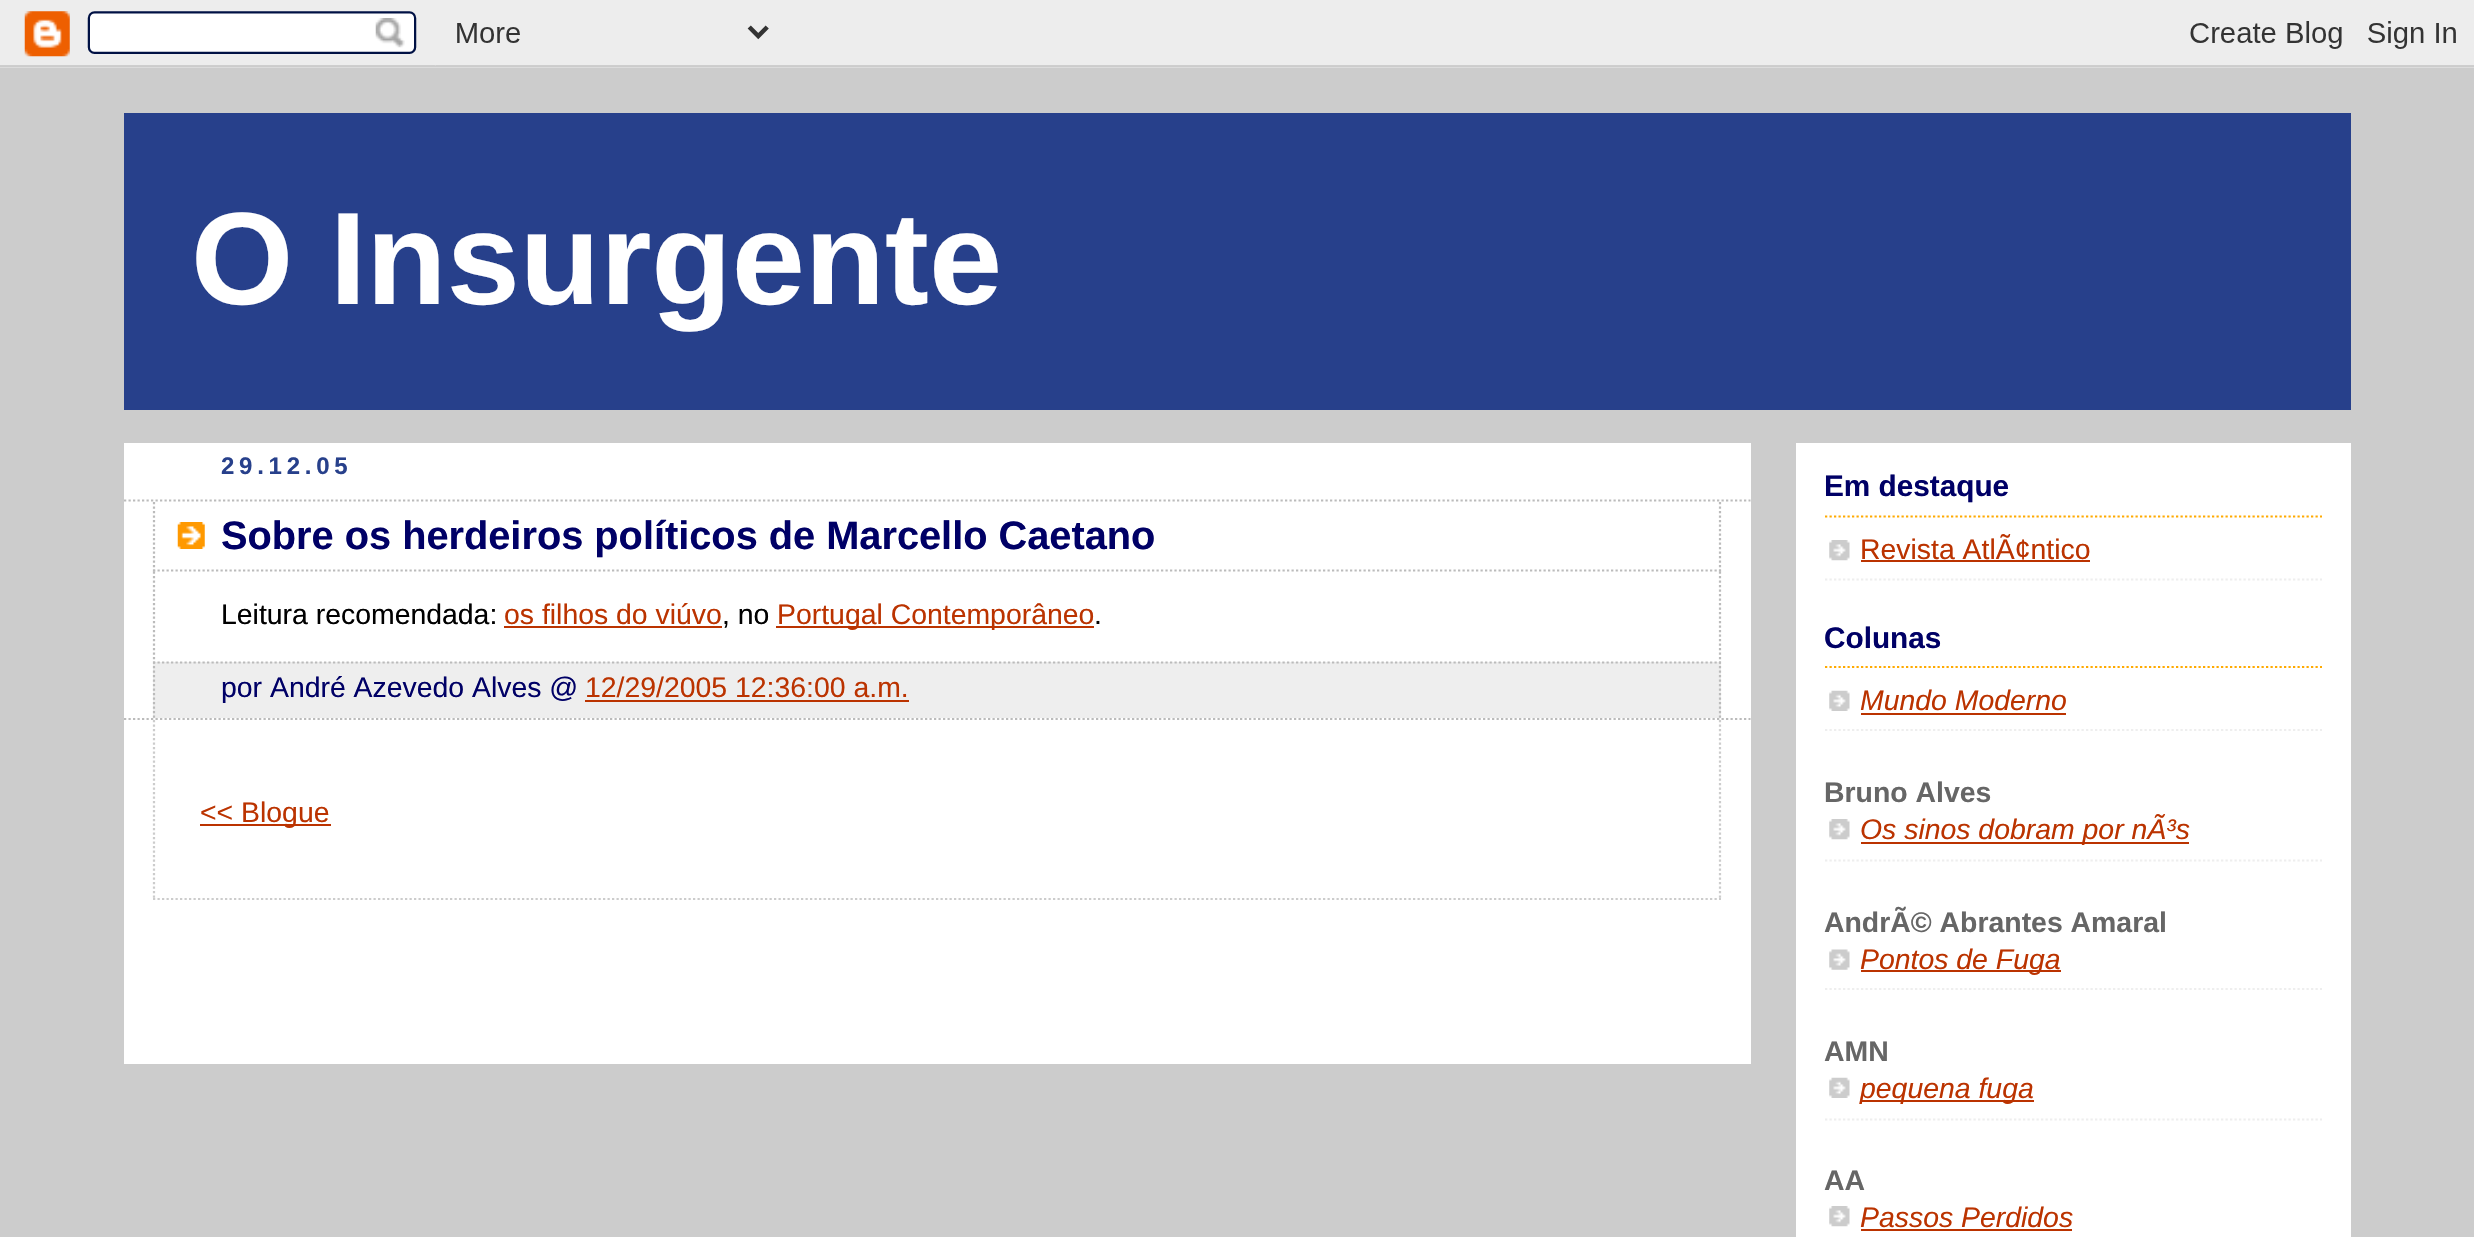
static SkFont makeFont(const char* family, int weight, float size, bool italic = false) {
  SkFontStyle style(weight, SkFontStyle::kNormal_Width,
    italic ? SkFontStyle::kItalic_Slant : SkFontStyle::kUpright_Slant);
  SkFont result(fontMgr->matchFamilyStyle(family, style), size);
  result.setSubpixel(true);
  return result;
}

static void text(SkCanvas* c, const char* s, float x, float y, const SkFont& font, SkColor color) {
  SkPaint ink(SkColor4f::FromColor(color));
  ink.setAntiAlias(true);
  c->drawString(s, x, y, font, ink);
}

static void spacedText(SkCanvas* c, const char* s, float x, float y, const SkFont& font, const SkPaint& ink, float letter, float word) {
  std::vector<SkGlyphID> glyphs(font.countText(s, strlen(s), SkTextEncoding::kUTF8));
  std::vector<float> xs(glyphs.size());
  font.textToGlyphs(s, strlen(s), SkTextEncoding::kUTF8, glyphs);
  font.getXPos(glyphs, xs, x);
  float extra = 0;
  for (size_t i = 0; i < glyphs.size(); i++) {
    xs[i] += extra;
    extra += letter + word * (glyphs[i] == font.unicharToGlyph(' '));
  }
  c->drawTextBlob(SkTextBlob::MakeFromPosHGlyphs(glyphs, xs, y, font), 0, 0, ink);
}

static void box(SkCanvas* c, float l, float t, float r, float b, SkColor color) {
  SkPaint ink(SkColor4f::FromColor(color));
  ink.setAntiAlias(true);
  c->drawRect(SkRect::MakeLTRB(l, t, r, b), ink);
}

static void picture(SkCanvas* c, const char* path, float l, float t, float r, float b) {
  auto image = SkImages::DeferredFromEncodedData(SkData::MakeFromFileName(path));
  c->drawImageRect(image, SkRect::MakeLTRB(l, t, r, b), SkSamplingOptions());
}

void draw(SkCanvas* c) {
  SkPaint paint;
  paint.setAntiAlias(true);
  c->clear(0xffcccccc);
  picture(c, "img_01.png", 0, 0, 2474, 68);
  box(c, 124, 113, 2351, 410, 0xff27408b);
  SkFont face1 = makeFont("Liberation Sans", 700, 131.5f);
  text(c, "O Insurgente", 191, 304, face1, 0xffffffff);
  box(c, 124, 443, 1751, 1064, 0xffffffff);
  SkFont face2 = makeFont("Liberation Sans", 700, 24);
  paint.setColor(0xff27408b);
  spacedText(c, "29.12.05", 221, 474, face2, paint, 4.75f, 0);
  paint.setStyle(SkPaint::kStroke_Style);
  paint.setStrokeWidth(2.2f);
  paint.setColor(0xffbbbbbb);
  paint.setPathEffect(SkDashPathEffect::Make({{2.25f, 2.25f}}, 0));
  c->drawPath(SkPathBuilder().moveTo(124, 500.5f).lineTo(1750.5f, 500.5f).detach(), paint);
  paint.setPathEffect(nullptr);
  paint.setPathEffect(SkDashPathEffect::Make({{2.25f, 2.25f}}, 0));
  c->drawPath(SkPathBuilder().moveTo(124, 719).lineTo(1750.5f, 719).detach(), paint);
  paint.setPathEffect(nullptr);
  picture(c, "img_02.png", 177, 522, 205, 549);
  paint.setPathEffect(SkDashPathEffect::Make({{2.25f, 2.25f}}, 0));
  c->drawPath(SkPathBuilder().moveTo(1720, 502).lineTo(1720, 571.5f).detach(), paint);
  paint.setPathEffect(nullptr);
  paint.setPathEffect(SkDashPathEffect::Make({{2.25f, 2.25f}}, 0));
  c->drawPath(SkPathBuilder().moveTo(153, 570.5f).lineTo(1721, 570.5f).detach(), paint);
  paint.setPathEffect(nullptr);
  paint.setPathEffect(SkDashPathEffect::Make({{2.25f, 2.25f}}, 0));
  c->drawPath(SkPathBuilder().moveTo(154, 502).lineTo(154, 571.5f).detach(), paint);
  paint.setPathEffect(nullptr);
  SkFont face3 = makeFont("Liberation Sans", 700, 39.75f);
  text(c, "Sobre os herdeiros políticos de Marcello Caetano", 221, 549, face3, 0xff000066);
  paint.setPathEffect(SkDashPathEffect::Make({{2.25f, 2.25f}}, 0));
  c->drawPath(SkPathBuilder().moveTo(1720, 571.5f).lineTo(1720, 661.5f).detach(), paint);
  paint.setPathEffect(nullptr);
  paint.setPathEffect(SkDashPathEffect::Make({{2.25f, 2.25f}}, 0));
  c->drawPath(SkPathBuilder().moveTo(154, 571.5f).lineTo(154, 661.5f).detach(), paint);
  paint.setPathEffect(nullptr);
  SkFont face4 = makeFont("Liberation Sans", 400, 28.4f);
  text(c, "Leitura recomendada:", 221, 624, face4, 0xff000000);
  text(c, "os filhos do viúvo", 504, 624, face4, 0xffbb3300);
  text(c, ", no", 722, 624, face4, 0xff000000);
  box(c, 504, 626, 722, 628, 0xffbb3300);
  box(c, 776, 626, 1094, 628, 0xffbb3300);
  text(c, "Portugal Contemporâneo", 777, 624, face4, 0xffbb3300);
  text(c, ".", 1094, 624, face4, 0xff000000);
  box(c, 153, 662, 1721, 718, 0xffeeeeee);
  paint.setPathEffect(SkDashPathEffect::Make({{2.25f, 2.25f}}, 0));
  c->drawPath(SkPathBuilder().moveTo(153, 662.5f).lineTo(1721, 662.5f).detach(), paint);
  paint.setPathEffect(nullptr);
  paint.setPathEffect(SkDashPathEffect::Make({{2.25f, 2.25f}}, 0));
  c->drawPath(SkPathBuilder().moveTo(1720, 661.5f).lineTo(1720, 718).detach(), paint);
  paint.setPathEffect(nullptr);
  paint.setPathEffect(SkDashPathEffect::Make({{2.25f, 2.25f}}, 0));
  c->drawPath(SkPathBuilder().moveTo(154, 661.5f).lineTo(154, 718).detach(), paint);
  paint.setPathEffect(nullptr);
  text(c, "por André Azevedo Alves @", 221, 697, face4, 0xff000066);
  text(c, "12/29/2005 12:36:00 a.m.", 585, 697, face4, 0xffbb3300);
  box(c, 585, 700, 909, 702, 0xffbb3300);
  paint.setColor(0xffcccccc);
  paint.setPathEffect(SkDashPathEffect::Make({{2.25f, 2.25f}}, 0));
  c->drawPath(SkPathBuilder().moveTo(1720, 720).lineTo(1720, 900).detach(), paint);
  paint.setPathEffect(nullptr);
  paint.setPathEffect(SkDashPathEffect::Make({{2.25f, 2.25f}}, 0));
  c->drawPath(SkPathBuilder().moveTo(153, 899).lineTo(1721, 899).detach(), paint);
  paint.setPathEffect(nullptr);
  paint.setPathEffect(SkDashPathEffect::Make({{2.25f, 2.25f}}, 0));
  c->drawPath(SkPathBuilder().moveTo(154, 720).lineTo(154, 900).detach(), paint);
  paint.setPathEffect(nullptr);
  box(c, 200, 824, 331, 826, 0xffbb3300);
  text(c, "<< Blogue", 200, 822, face4, 0xffbb3300);
  box(c, 1796, 443, 2351, 1237, 0xffffffff);
  paint.setColor(0xffffaa00);
  paint.setPathEffect(SkDashPathEffect::Make({{2.25f, 2.25f}}, 0));
  c->drawPath(SkPathBuilder().moveTo(1825, 516.5f).lineTo(2322, 516.5f).detach(), paint);
  paint.setPathEffect(nullptr);
  SkFont face5 = makeFont("Liberation Sans", 700, 29.75f);
  text(c, "Em destaque", 1824, 496, face5, 0xff000066);
  picture(c, "img_03.png", 1829, 540, 1850, 561);
  paint.setColor(0xffeeeeee);
  paint.setPathEffect(SkDashPathEffect::Make({{2.25f, 2.25f}}, 0));
  c->drawPath(SkPathBuilder().moveTo(1825, 579.5f).lineTo(2322, 579.5f).detach(), paint);
  paint.setPathEffect(nullptr);
  text(c, "Revista AtlÃ¢ntico", 1860, 559, face4, 0xffbb3300);
  box(c, 1861, 560, 2090, 562, 0xffbb3300);
  paint.setColor(0xffffaa00);
  paint.setPathEffect(SkDashPathEffect::Make({{2.25f, 2.25f}}, 0));
  c->drawPath(SkPathBuilder().moveTo(1825, 667).lineTo(2322, 667).detach(), paint);
  paint.setPathEffect(nullptr);
  text(c, "Colunas", 1824, 648, face5, 0xff000066);
  picture(c, "img_04.png", 1829, 690, 1850, 711);
  paint.setColor(0xffeeeeee);
  paint.setPathEffect(SkDashPathEffect::Make({{2.25f, 2.25f}}, 0));
  c->drawPath(SkPathBuilder().moveTo(1825, 730).lineTo(2322, 730).detach(), paint);
  paint.setPathEffect(nullptr);
  SkFont face6 = makeFont("Liberation Sans", 400, 28.4f, true);
  text(c, "Mundo Moderno", 1860, 710, face6, 0xffbb3300);
  box(c, 1861, 713, 2066, 715, 0xffbb3300);
  SkFont face7 = makeFont("Liberation Sans", 700, 28.4f);
  text(c, "Bruno Alves", 1824, 802, face7, 0xff666666);
  picture(c, "img_03.png", 1829, 819, 1850, 840);
  paint.setPathEffect(SkDashPathEffect::Make({{2.25f, 2.25f}}, 0));
  c->drawPath(SkPathBuilder().moveTo(1825, 860.5f).lineTo(2322, 860.5f).detach(), paint);
  paint.setPathEffect(nullptr);
  box(c, 1861, 842, 2189, 844, 0xffbb3300);
  text(c, "Os sinos dobram por nÃ³s", 1860, 839, face6, 0xffbb3300);
  text(c, "AndrÃ© Abrantes Amaral", 1824, 932, face7, 0xff666666);
  picture(c, "img_05.png", 1829, 949, 1850, 970);
  paint.setPathEffect(SkDashPathEffect::Make({{2.25f, 2.25f}}, 0));
  c->drawPath(SkPathBuilder().moveTo(1825, 989).lineTo(2322, 989).detach(), paint);
  paint.setPathEffect(nullptr);
  box(c, 1861, 970, 2061, 972, 0xffbb3300);
  text(c, "Pontos de Fuga", 1860, 969, face6, 0xffbb3300);
  text(c, "AMN", 1824, 1061, face7, 0xff666666);
  picture(c, "img_04.png", 1829, 1077, 1850, 1098);
  paint.setPathEffect(SkDashPathEffect::Make({{2.25f, 2.25f}}, 0));
  c->drawPath(SkPathBuilder().moveTo(1825, 1119.5f).lineTo(2322, 1119.5f).detach(), paint);
  paint.setPathEffect(nullptr);
  box(c, 1861, 1100, 2034, 1102, 0xffbb3300);
  text(c, "pequena fuga", 1860, 1098, face6, 0xffbb3300);
  text(c, "AA", 1824, 1190, face7, 0xff666666);
  picture(c, "img_03.png", 1829, 1206, 1850, 1227);
  text(c, "Passos Perdidos", 1860, 1227, face6, 0xffbb3300);
  box(c, 1861, 1229, 2072, 1231, 0xffbb3300);
}
